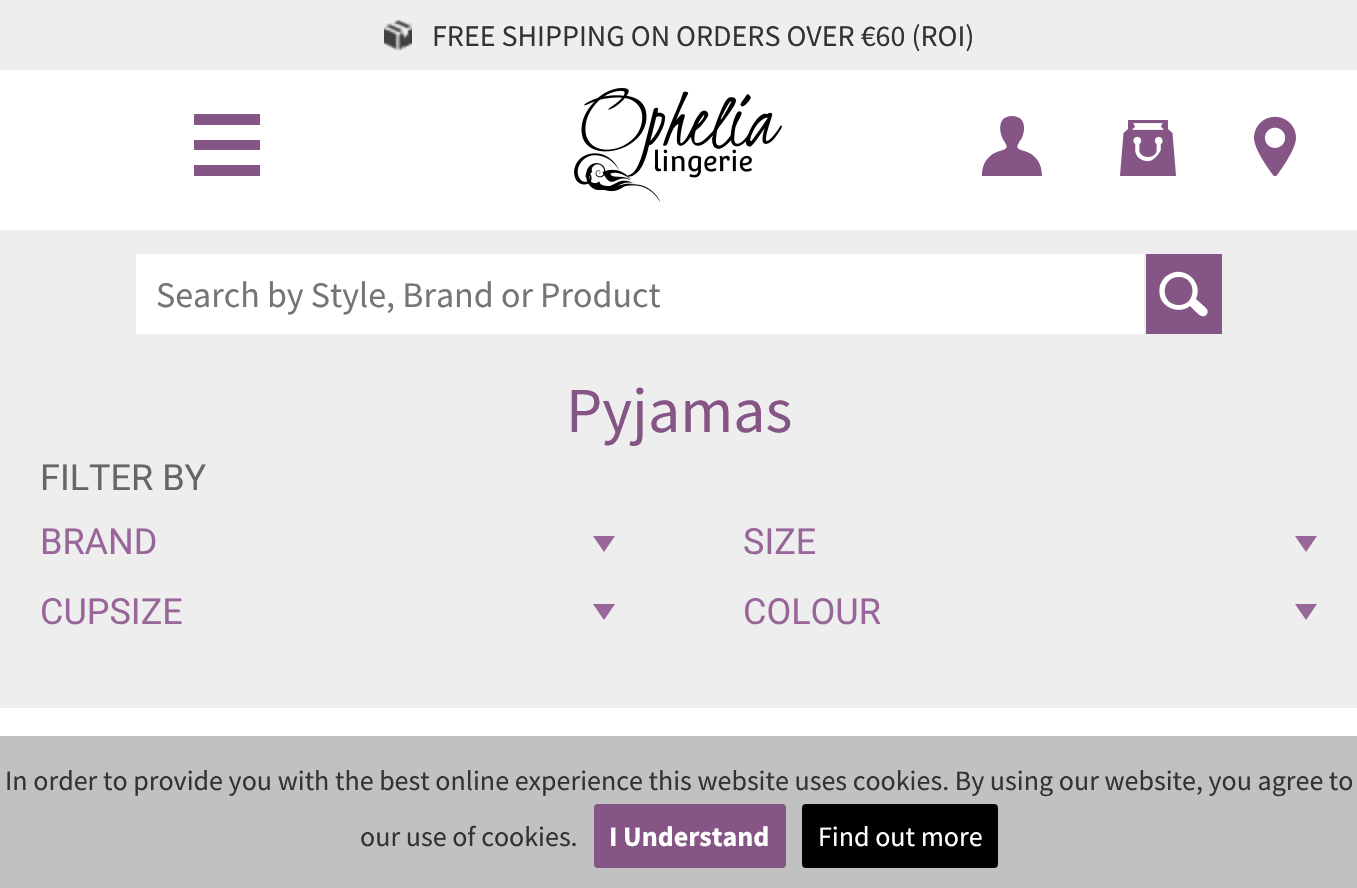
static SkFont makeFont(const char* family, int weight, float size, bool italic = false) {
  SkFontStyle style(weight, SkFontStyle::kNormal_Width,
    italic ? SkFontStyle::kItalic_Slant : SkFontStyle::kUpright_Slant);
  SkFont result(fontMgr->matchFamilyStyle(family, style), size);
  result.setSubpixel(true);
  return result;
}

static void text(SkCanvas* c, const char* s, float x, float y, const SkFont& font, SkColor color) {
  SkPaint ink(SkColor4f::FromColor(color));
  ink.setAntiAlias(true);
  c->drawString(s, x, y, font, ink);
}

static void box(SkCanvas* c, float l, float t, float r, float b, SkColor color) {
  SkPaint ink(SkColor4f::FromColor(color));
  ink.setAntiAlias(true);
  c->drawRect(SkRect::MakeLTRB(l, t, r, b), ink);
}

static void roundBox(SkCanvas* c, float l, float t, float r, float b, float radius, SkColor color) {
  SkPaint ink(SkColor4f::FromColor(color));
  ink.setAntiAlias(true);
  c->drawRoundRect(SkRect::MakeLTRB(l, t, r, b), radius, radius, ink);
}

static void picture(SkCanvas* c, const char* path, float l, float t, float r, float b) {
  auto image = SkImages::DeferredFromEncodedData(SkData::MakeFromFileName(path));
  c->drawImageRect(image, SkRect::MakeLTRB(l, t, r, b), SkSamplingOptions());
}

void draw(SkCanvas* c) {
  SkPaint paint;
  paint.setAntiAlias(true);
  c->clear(0xffffffff);
  box(c, 0, 0, 1357, 70, 0xffeeeeee);
  picture(c, "img_01.png", 384, 20, 412, 50);
  SkFont face1 = makeFont("Source Sans Pro", 400, 30);
  text(c, "FREE SHIPPING ON ORDERS OVER €60 (ROI)", 432, 46, face1, 0xff333333);
  box(c, 194, 114, 260, 125, 0xff855585);
  box(c, 194, 140, 260, 150, 0xff855585);
  box(c, 194, 165, 260, 176, 0xff855585);
  picture(c, "img_02.png", 574, 88, 782, 202);
  paint.setColor(0xff855585);
  c->drawPath(SkPathBuilder().moveTo(1021, 150).cubicTo(1015, 148, 1018, 144, 1019, 143).lineTo(1019, 142).cubicTo(1025, 137, 1029, 116, 1012, 116).cubicTo(995, 116, 1000, 137, 1005, 142).lineTo(1005, 143).cubicTo(1006, 144, 1009, 148, 1003, 150).cubicTo(995, 152, 982, 157, 982, 176).lineTo(1042, 176).cubicTo(1042, 157, 1029, 152, 1021, 150).close().detach(), paint);
  picture(c, "img_03.png", 1120, 120, 1176, 176);
  picture(c, "img_04.png", 1254, 116, 1296, 176);
  box(c, 0, 230, 1357, 708, 0xffeeeeee);
  box(c, 136, 254, 1144, 334, 0xffffffff);
  SkFont face2 = makeFont("Source Sans Pro", 400, 36);
  text(c, "Search by Style, Brand or Product", 156, 307, face2, 0xff757575);
  box(c, 1146, 254, 1222, 334, 0xff855585);
  paint.setColor(0xffffffff);
  c->drawPath(SkPathBuilder().moveTo(1206, 308).lineTo(1196, 299).cubicTo(1204, 282, 1184, 264, 1168, 275).cubicTo(1164, 277, 1162, 281, 1160, 285).cubicTo(1159, 290, 1159, 296, 1162, 301).cubicTo(1168, 310, 1181, 313, 1190, 306).lineTo(1196, 312).cubicTo(1199, 315, 1204, 319, 1207, 314).cubicTo(1208, 312, 1208, 310, 1206, 308).close().moveTo(1179, 305).cubicTo(1160, 305, 1160, 277, 1179, 277).cubicTo(1197, 277, 1197, 305, 1179, 305).close().detach(), paint);
  SkFont face3 = makeFont("Source Sans Pro", 400, 64);
  text(c, "Pyjamas", 566, 432, face3, 0xff855585);
  SkFont face4 = makeFont("Roboto", 400, 36);
  text(c, "FILTER BY", 40, 490, face4, 0xff666666);
  paint.setColor(0xff996699);
  c->drawPath(SkPathBuilder().moveTo(593, 536).lineTo(615, 536).lineTo(604, 552).close().detach(), paint);
  text(c, "BRAND", 40, 554, face4, 0xff996699);
  c->drawPath(SkPathBuilder().moveTo(1295, 536).lineTo(1317, 536).lineTo(1306, 552).close().detach(), paint);
  text(c, "SIZE", 743, 554, face4, 0xff996699);
  c->drawPath(SkPathBuilder().moveTo(593, 604).lineTo(615, 604).lineTo(604, 620).close().detach(), paint);
  text(c, "CUPSIZE", 40, 624, face4, 0xff996699);
  c->drawPath(SkPathBuilder().moveTo(1295, 604).lineTo(1317, 604).lineTo(1306, 620).close().detach(), paint);
  text(c, "COLOUR", 743, 624, face4, 0xff996699);
  box(c, 0, 736, 1357, 888, 0xffc1c1c1);
  SkFont face5 = makeFont("Source Sans Pro", 400, 28);
  text(c, "In order to provide you with the best online experience this website uses cookies. By using our website, you agree to", 5, 790, face5, 0xff333333);
  text(c, "our use of cookies.", 360, 846, face5, 0xff333333);
  roundBox(c, 594, 804, 786, 868, 4, 0xff855585);
  SkFont face6 = makeFont("Source Sans Pro", 700, 28);
  text(c, "I Understand", 609, 846, face6, 0xffffffff);
  roundBox(c, 802, 804, 998, 868, 4, 0xff000000);
  text(c, "Find out more", 818, 846, face5, 0xffffffff);
}
